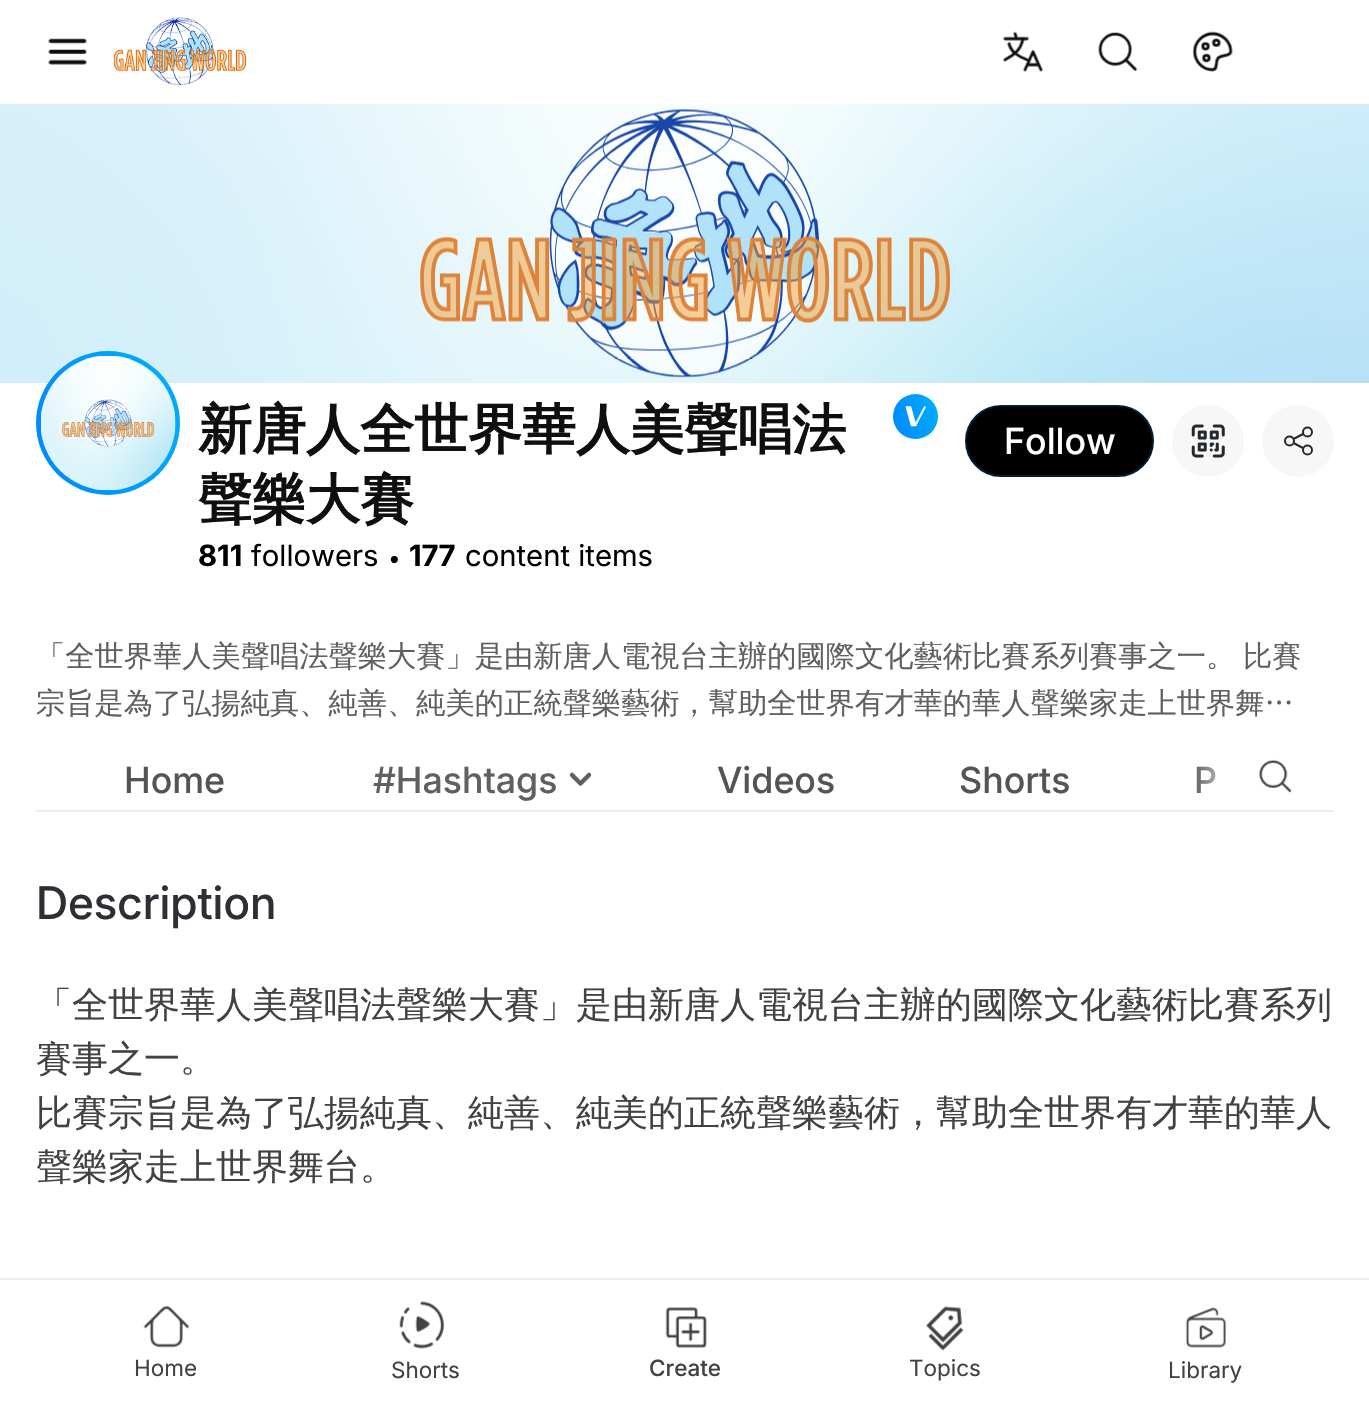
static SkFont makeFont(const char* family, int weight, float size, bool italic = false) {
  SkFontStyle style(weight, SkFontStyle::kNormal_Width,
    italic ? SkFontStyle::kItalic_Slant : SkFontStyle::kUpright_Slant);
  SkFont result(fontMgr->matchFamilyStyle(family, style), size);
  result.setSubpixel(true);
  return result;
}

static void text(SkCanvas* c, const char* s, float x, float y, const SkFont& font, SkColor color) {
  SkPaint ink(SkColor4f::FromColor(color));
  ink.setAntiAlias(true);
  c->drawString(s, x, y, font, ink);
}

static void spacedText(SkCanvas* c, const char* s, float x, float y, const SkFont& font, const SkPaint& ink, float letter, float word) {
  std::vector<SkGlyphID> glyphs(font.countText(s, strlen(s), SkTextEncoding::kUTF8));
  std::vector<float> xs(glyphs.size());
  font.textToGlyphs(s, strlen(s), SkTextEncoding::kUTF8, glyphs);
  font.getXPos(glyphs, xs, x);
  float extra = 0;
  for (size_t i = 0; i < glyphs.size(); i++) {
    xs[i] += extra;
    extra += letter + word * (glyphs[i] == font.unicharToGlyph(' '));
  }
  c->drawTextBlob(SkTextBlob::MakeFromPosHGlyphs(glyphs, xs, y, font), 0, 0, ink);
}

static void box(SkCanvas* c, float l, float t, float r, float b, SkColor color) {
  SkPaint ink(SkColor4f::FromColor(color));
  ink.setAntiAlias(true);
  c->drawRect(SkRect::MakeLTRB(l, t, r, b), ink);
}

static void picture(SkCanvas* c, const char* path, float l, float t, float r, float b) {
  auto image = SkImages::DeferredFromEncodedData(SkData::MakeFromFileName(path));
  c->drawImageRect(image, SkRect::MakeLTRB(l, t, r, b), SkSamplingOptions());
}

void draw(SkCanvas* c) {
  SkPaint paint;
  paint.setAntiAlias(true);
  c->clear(0xffffffff);
  picture(c, "img_01.png", 48, 38, 87, 65);
  picture(c, "img_02.png", 113, 17, 247, 86);
  picture(c, "img_03.png", 1003, 31, 1043, 72);
  picture(c, "img_04.png", 1098, 32, 1138, 71);
  picture(c, "img_05.png", 1192, 31, 1233, 72);
  picture(c, "img_06.png", 0, 104, 1369, 383);
  {
    const SkColor colors[] = {0xff00b0fc, 0xff0187fd};
    const float stops[] = {0, 1};
    const SkPoint ends[] = {{194, 395}, {22, 451}};
    paint.setShader(SkGradientShader::MakeLinear(ends, colors, stops, 2, SkTileMode::kClamp));
    paint.setAlpha(255);
  }
  c->drawCircle(108, 423, 72, paint);
  picture(c, "img_07.png", 41, 356, 176, 491);
  SkFont face1 = makeFont("WenQuanYi Zen Hei", 700, 54);
  text(c, "新唐人全世界華人美聲唱法", 198, 448, face1, 0xff0f0f0f);
  text(c, "聲樂大賽", 198, 518, face1, 0xff0f0f0f);
  {
    const SkColor colors[] = {0xff00b0fc, 0xff0187fd};
    const float stops[] = {0, 1};
    const SkPoint ends[] = {{943, 407}, {889, 425}};
    paint.setShader(SkGradientShader::MakeLinear(ends, colors, stops, 2, SkTileMode::kClamp));
    paint.setAlpha(255);
  }
  c->drawCircle(915.5f, 416.5f, 22.5f, paint);
  picture(c, "img_08.png", 905, 406, 926, 427);
  SkFont face2 = makeFont("Inter", 700, 29.25f);
  text(c, "811", 198, 566, face2, 0xff000000);
  SkFont face3 = makeFont("Inter", 400, 29.25f);
  text(c, "followers", 251, 566, face3, 0xff000000);
  SkFont face4 = makeFont("Inter", 400, 22.5f);
  text(c, "•", 388, 566, face4, 0xff000000);
  text(c, "177", 409, 566, face2, 0xff000000);
  text(c, "content items", 465, 566, face3, 0xff000000);
  paint.setShader(nullptr);
  paint.setColor(0xff000000);
  c->drawRoundRect(SkRect::MakeLTRB(966, 406, 1153, 476), 35, 35, paint);
  paint.setStyle(SkPaint::kStroke_Style);
  paint.setStrokeWidth(2);
  paint.setColor(0xff001d38);
  c->drawRoundRect(SkRect::MakeLTRB(966, 406, 1153, 476), 35, 35, paint);
  SkFont face5 = makeFont("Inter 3", 500, 36);
  text(c, "Follow", 1004, 454, face5, 0xffffffff);
  paint.setStyle(SkPaint::kFill_Style);
  paint.setColor(0xfff7f7f7);
  c->drawCircle(1208, 441, 36, paint);
  picture(c, "img_09.png", 1191, 424, 1225, 458);
  c->drawCircle(1298, 441, 36, paint);
  paint.setStyle(SkPaint::kStroke_Style);
  paint.setColor(0xff24292e);
  c->drawPath(SkPathBuilder().moveTo(1293.5f, 439).lineTo(1303, 434).moveTo(1303, 448).lineTo(1293.5f, 443).moveTo(1312, 432).cubicTo(1312, 438, 1303, 438, 1303, 432).cubicTo(1303, 426, 1312, 426, 1312, 432).close().moveTo(1294, 441).cubicTo(1294, 447, 1285, 447, 1285, 441).cubicTo(1285, 435, 1294, 435, 1294, 441).close().moveTo(1312, 450).cubicTo(1312, 456, 1303, 456, 1303, 450).cubicTo(1303, 444, 1312, 444, 1312, 450).close().detach(), paint);
  SkFont face6 = makeFont("WenQuanYi Zen Hei", 500, 29.25f);
  paint.setStyle(SkPaint::kFill_Style);
  paint.setColor(0xff606060);
  spacedText(c, "「全世界華人美聲唱法聲樂大賽」是由新唐人電視台主辦的國際文化藝術比賽系列賽事之一。 比賽", 36, 666, face6, paint, 0, -1);
  text(c, "宗旨是為了弘揚純真、純善、純美的正統聲樂藝術，幫助全世界有才華的華人聲樂家走上世界舞…", 36, 713, face6, 0xff606060);
  box(c, 36, 810, 1334, 812, 0xffeeeeee);
  text(c, "Home", 124, 793, face5, 0xff545454);
  text(c, "#Hashtags", 373, 793, face5, 0xff606060);
  paint.setStyle(SkPaint::kStroke_Style);
  paint.setStrokeWidth(4.5f);
  paint.setStrokeCap(SkPaint::kRound_Cap);
  paint.setStrokeJoin(SkPaint::kRound_Join);
  c->drawPath(SkPathBuilder().moveTo(589, 775).lineTo(580.5f, 783.5f).lineTo(572, 775).detach(), paint);
  text(c, "Videos", 717, 793, face5, 0xff545454);
  text(c, "Shorts", 959, 793, face5, 0xff545454);
  text(c, "P", 1194, 793, face5, 0xff545454);
  paint.setStyle(SkPaint::kFill_Style);
  {
    const SkColor colors[] = {0x00ffffff, 0xffffffff};
    const float stops[] = {0, 1};
    const SkPoint ends[] = {{1190, 779}, {1244, 779}};
    paint.setShader(SkGradientShader::MakeLinear(ends, colors, stops, 2, SkTileMode::kClamp));
    paint.setAlpha(255);
  }
  c->drawRect(SkRect::MakeLTRB(1197, 766, 1216, 793), paint);
  picture(c, "img_10.png", 1259, 759, 1292, 793);
  SkFont face7 = makeFont("Inter", 500, 45);
  text(c, "Description", 36, 919, face7, 0xff2f2e35);
  SkFont face8 = makeFont("WenQuanYi Zen Hei", 500, 36);
  text(c, "「全世界華人美聲唱法聲樂大賽」是由新唐人電視台主辦的國際文化藝術比賽系列", 36, 1017, face8, 0xff424242);
  text(c, "賽事之一。", 36, 1071, face8, 0xff424242);
  text(c, "比賽宗旨是為了弘揚純真、純善、純美的正統聲樂藝術，幫助全世界有才華的華人", 36, 1125, face8, 0xff424242);
  text(c, "聲樂家走上世界舞台。", 36, 1179, face8, 0xff424242);
  box(c, 0, 1278, 1369, 1280, 0xffeeeeee);
  picture(c, "img_11.png", 143, 1306, 189, 1348);
  text(c, "Home", 134, 1376, face4, 0xff424242);
  picture(c, "img_12.png", 399, 1301, 444, 1349);
  text(c, "Shorts", 391, 1378, face4, 0xff424242);
  picture(c, "img_13.png", 665, 1307, 707, 1348);
  SkFont face9 = makeFont("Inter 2", 500, 22.5f);
  text(c, "Create", 649, 1376, face9, 0xff424242);
  picture(c, "img_14.png", 926, 1306, 964, 1351);
  text(c, "Topics", 909, 1376, face4, 0xff424242);
  picture(c, "img_15.png", 1185, 1307, 1226, 1348);
  text(c, "Library", 1168, 1378, face4, 0xff424242);
}
